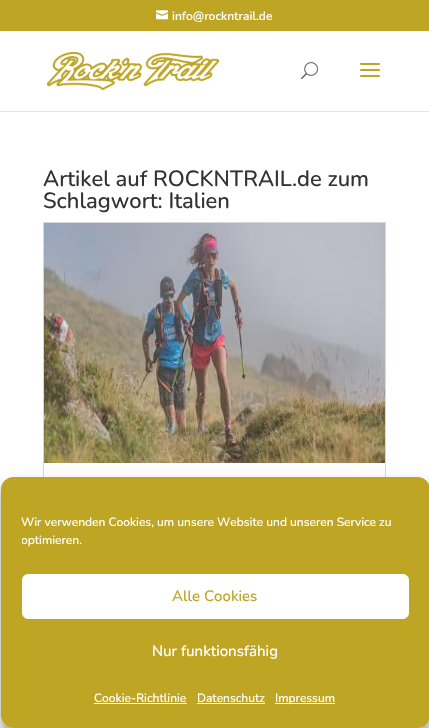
static SkFont makeFont(const char* family, int weight, float size, bool italic = false) {
  SkFontStyle style(weight, SkFontStyle::kNormal_Width,
    italic ? SkFontStyle::kItalic_Slant : SkFontStyle::kUpright_Slant);
  SkFont result(fontMgr->matchFamilyStyle(family, style), size);
  result.setSubpixel(true);
  return result;
}

static void text(SkCanvas* c, const char* s, float x, float y, const SkFont& font, SkColor color) {
  SkPaint ink(SkColor4f::FromColor(color));
  ink.setAntiAlias(true);
  c->drawString(s, x, y, font, ink);
}

static void box(SkCanvas* c, float l, float t, float r, float b, SkColor color) {
  SkPaint ink(SkColor4f::FromColor(color));
  ink.setAntiAlias(true);
  c->drawRect(SkRect::MakeLTRB(l, t, r, b), ink);
}

static void picture(SkCanvas* c, const char* path, float l, float t, float r, float b) {
  auto image = SkImages::DeferredFromEncodedData(SkData::MakeFromFileName(path));
  c->drawImageRect(image, SkRect::MakeLTRB(l, t, r, b), SkSamplingOptions());
}

void draw(SkCanvas* c) {
  SkPaint paint;
  paint.setAntiAlias(true);
  c->clear(0xffbfa524);
  picture(c, "img_01.png", 156, 10, 168, 20);
  SkFont face1 = makeFont("Nunito", 600, 12);
  text(c, "info@rockntrail.de", 172, 20, face1, 0xffffffff);
  box(c, 0, 111, 429, 112, 0xffe6e6e6);
  box(c, 0, 31, 429, 111, 0xffffffff);
  picture(c, "img_02.png", 47, 52, 219, 90);
  picture(c, "img_03.png", 301, 62, 318, 80);
  picture(c, "img_04.png", 360, 63, 380, 77);
  box(c, 0, 112, 429, 728, 0xffffffff);
  SkFont face2 = makeFont("Nunito", 500, 22);
  text(c, "Artikel auf ROCKNTRAIL.de zum", 43, 186, face2, 0xff333333);
  text(c, "Schlagwort: Italien", 43, 208, face2, 0xff333333);
  paint.setStyle(SkPaint::kStroke_Style);
  paint.setStrokeWidth(1);
  paint.setColor(0xffd8d8d8);
  c->drawRect(SkRect::MakeLTRB(43.5f, 222.5f, 385.5f, 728.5f), paint);
  picture(c, "img_05.png", 44, 223, 385, 463);
  c->save();
  c->clipPath(SkPathBuilder(SkPathFillType::kEvenOdd).moveTo(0, 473).lineTo(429, 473).lineTo(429, 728).lineTo(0, 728).close().moveTo(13, 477).lineTo(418, 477).cubicTo(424.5f, 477, 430, 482.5f, 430, 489).lineTo(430, 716).cubicTo(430, 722.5f, 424.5f, 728, 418, 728).lineTo(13, 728).cubicTo(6.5f, 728, 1, 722.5f, 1, 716).lineTo(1, 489).cubicTo(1, 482.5f, 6.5f, 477, 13, 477).close().detach(), true);
  paint.setStyle(SkPaint::kFill_Style);
  paint.setColor(0x3b000000);
  paint.setMaskFilter(SkMaskFilter::MakeBlur(kNormal_SkBlurStyle, 3));
  c->drawRoundRect(SkRect::MakeLTRB(1, 483, 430, 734), 12, 12, paint);
  paint.setMaskFilter(nullptr);
  c->restore();
  c->save();
  c->clipPath(SkPathBuilder(SkPathFillType::kEvenOdd).moveTo(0, 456).lineTo(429, 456).lineTo(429, 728).lineTo(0, 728).close().moveTo(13, 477).lineTo(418, 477).cubicTo(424.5f, 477, 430, 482.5f, 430, 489).lineTo(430, 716).cubicTo(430, 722.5f, 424.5f, 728, 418, 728).lineTo(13, 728).cubicTo(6.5f, 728, 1, 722.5f, 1, 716).lineTo(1, 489).cubicTo(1, 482.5f, 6.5f, 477, 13, 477).close().detach(), true);
  paint.setColor(0x30000000);
  paint.setMaskFilter(SkMaskFilter::MakeBlur(kNormal_SkBlurStyle, 10));
  c->drawRoundRect(SkRect::MakeLTRB(1, 487, 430, 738), 12, 12, paint);
  paint.setMaskFilter(nullptr);
  c->restore();
  paint.setColor(0xffbfa524);
  c->drawRoundRect(SkRect::MakeLTRB(1.5f, 477.5f, 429.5f, 727.5f), 11.5f, 11.5f, paint);
  paint.setStyle(SkPaint::kStroke_Style);
  c->drawRoundRect(SkRect::MakeLTRB(1.5f, 477.5f, 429.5f, 727.5f), 11.5f, 11.5f, paint);
  SkFont face3 = makeFont("Nunito", 500, 12);
  text(c, "Wir verwenden Cookies, um unsere Website und unseren Service zu", 21, 526, face3, 0xffffffff);
  c->save();
  c->clipRect(SkRect::MakeLTRB(22, 513, 409, 554));
  text(c, "optimieren.", 21, 544, face3, 0xffffffff);
  c->restore();
  paint.setStyle(SkPaint::kFill_Style);
  paint.setColor(0xffffffff);
  c->drawRoundRect(SkRect::MakeLTRB(22.5f, 574.5f, 408.5f, 618.5f), 5.5f, 5.5f, paint);
  paint.setStyle(SkPaint::kStroke_Style);
  c->drawRoundRect(SkRect::MakeLTRB(22.5f, 574.5f, 408.5f, 618.5f), 5.5f, 5.5f, paint);
  SkFont face4 = makeFont("Nunito", 500, 15);
  text(c, "Alle Cookies", 172, 601, face4, 0xffbfa524);
  text(c, "Nur funktionsfähig", 152, 656, face4, 0xffffffff);
  text(c, "Cookie-Richtlinie", 94, 702, face3, 0xffffffff);
  box(c, 94, 703, 187, 704, 0xffffffff);
  text(c, "Datenschutz", 197, 702, face3, 0xffffffff);
  box(c, 197, 703, 265, 704, 0xffffffff);
  box(c, 275, 703, 335, 704, 0xffffffff);
  text(c, "Impressum", 275, 702, face3, 0xffffffff);
}
